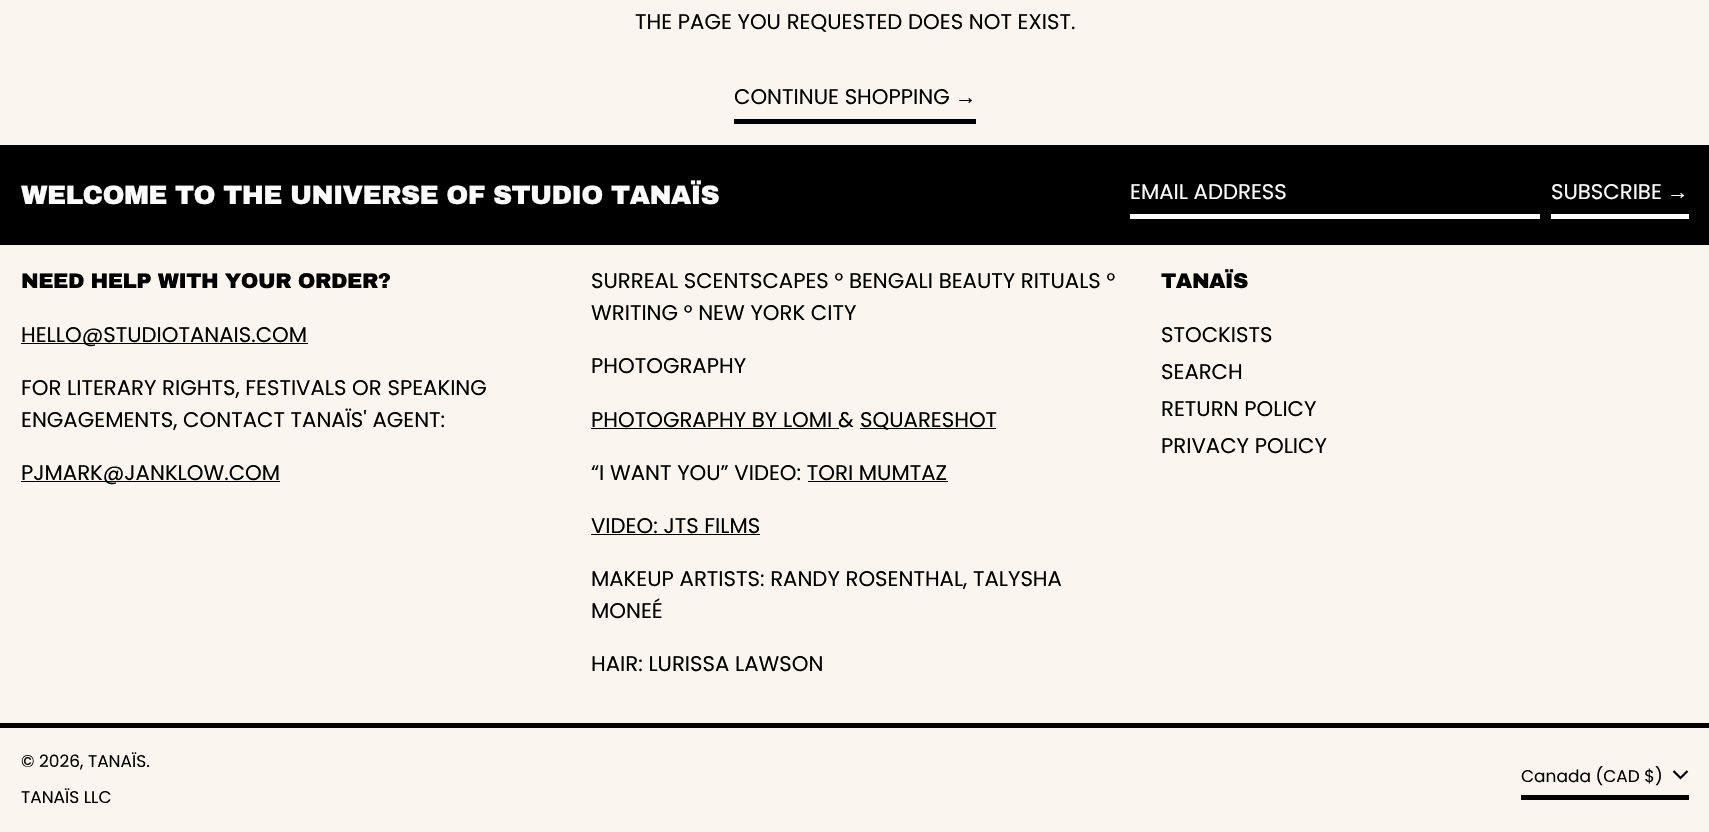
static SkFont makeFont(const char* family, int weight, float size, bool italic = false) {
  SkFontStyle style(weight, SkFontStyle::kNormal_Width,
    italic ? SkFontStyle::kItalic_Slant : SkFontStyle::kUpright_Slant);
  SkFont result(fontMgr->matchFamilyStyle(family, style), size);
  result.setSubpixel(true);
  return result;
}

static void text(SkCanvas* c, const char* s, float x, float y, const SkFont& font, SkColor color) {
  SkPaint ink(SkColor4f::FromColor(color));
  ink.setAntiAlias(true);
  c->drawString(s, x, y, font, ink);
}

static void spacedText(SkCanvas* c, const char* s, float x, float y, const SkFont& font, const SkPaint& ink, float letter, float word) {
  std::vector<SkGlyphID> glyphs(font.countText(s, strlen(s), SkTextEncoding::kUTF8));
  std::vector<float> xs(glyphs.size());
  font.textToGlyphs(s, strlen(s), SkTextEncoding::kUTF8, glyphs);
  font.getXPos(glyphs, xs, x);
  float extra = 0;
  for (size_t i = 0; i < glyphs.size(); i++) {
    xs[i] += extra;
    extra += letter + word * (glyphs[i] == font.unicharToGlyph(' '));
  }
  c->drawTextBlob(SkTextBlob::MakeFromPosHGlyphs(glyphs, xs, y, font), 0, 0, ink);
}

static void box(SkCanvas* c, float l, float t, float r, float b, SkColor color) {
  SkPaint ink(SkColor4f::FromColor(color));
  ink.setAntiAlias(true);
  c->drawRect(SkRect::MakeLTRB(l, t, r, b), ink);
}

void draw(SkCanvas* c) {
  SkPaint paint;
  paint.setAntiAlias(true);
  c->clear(0xfffaf5ef);
  box(c, 0, 145, 1709, 245, 0xff000000);
  SkFont face1 = makeFont("Poppins", 400, 21.25f);
  text(c, "THE PAGE YOU REQUESTED DOES NOT EXIST.", 635, 29, face1, 0xff000000);
  box(c, 734, 119, 976, 124, 0xff000000);
  text(c, "CONTINUE SHOPPING", 734, 104, face1, 0xff000000);
  SkFont face2 = makeFont("Liberation Sans", 400, 21.25f);
  text(c, "→", 955, 104, face2, 0xff000000);
  SkFont face3 = makeFont("Archivo Black", 400, 26.55f);
  paint.setColor(0xfffcfcfc);
  spacedText(c, "WELCOME TO THE UNIVERSE OF STUDIO TANAÏS", 21, 204, face3, paint, -0.65f, 0);
  box(c, 1130, 214, 1540, 219, 0xfffcfcfc);
  text(c, "EMAIL ADDRESS", 1130, 199, face1, 0xfffcfcfc);
  box(c, 1551, 214, 1689, 219, 0xfffcfcfc);
  text(c, "SUBSCRIBE", 1551, 199, face1, 0xfffcfcfc);
  text(c, "→", 1667, 199, face2, 0xfffcfcfc);
  box(c, 0, 723, 1709, 728, 0xff000000);
  SkFont face4 = makeFont("Archivo Black", 400, 21.25f);
  paint.setColor(0xff000000);
  spacedText(c, "NEED HELP WITH YOUR ORDER?", 21, 288, face4, paint, -0.5f, 0);
  box(c, 21, 343, 308, 344, 0xff000000);
  text(c, "HELLO@STUDIOTANAIS.COM", 21, 342, face1, 0xff000000);
  text(c, "FOR LITERARY RIGHTS, FESTIVALS OR SPEAKING", 21, 395, face1, 0xff000000);
  text(c, "ENGAGEMENTS, CONTACT TANAÏS' AGENT:", 21, 427, face1, 0xff000000);
  box(c, 21, 481, 280, 482, 0xff000000);
  text(c, "PJMARK@JANKLOW.COM", 21, 480, face1, 0xff000000);
  text(c, "SURREAL SCENTSCAPES ° BENGALI BEAUTY RITUALS °", 591, 288, face1, 0xff000000);
  text(c, "WRITING ° NEW YORK CITY", 591, 320, face1, 0xff000000);
  text(c, "PHOTOGRAPHY", 591, 373, face1, 0xff000000);
  text(c, "PHOTOGRAPHY BY LOMI &", 591, 427, face1, 0xff000000);
  box(c, 591, 428, 839, 429, 0xff000000);
  box(c, 860, 428, 996, 429, 0xff000000);
  text(c, "SQUARESHOT", 860, 427, face1, 0xff000000);
  text(c, "“I WANT YOU” VIDEO: TORI MUMTAZ", 591, 480, face1, 0xff000000);
  box(c, 808, 481, 948, 482, 0xff000000);
  text(c, "VIDEO: JTS FILMS", 591, 533, face1, 0xff000000);
  box(c, 591, 534, 760, 535, 0xff000000);
  text(c, "MAKEUP ARTISTS: RANDY ROSENTHAL, TALYSHA", 591, 586, face1, 0xff000000);
  text(c, "MONEÉ", 591, 618, face1, 0xff000000);
  text(c, "HAIR: LURISSA LAWSON", 591, 671, face1, 0xff000000);
  spacedText(c, "TANAÏS", 1161, 288, face4, paint, -0.5f, 0);
  text(c, "STOCKISTS", 1161, 342, face1, 0xff000000);
  text(c, "SEARCH", 1161, 379, face1, 0xff000000);
  text(c, "RETURN POLICY", 1161, 416, face1, 0xff000000);
  text(c, "PRIVACY POLICY", 1161, 453, face1, 0xff000000);
  SkFont face5 = makeFont("Poppins", 400, 17);
  text(c, "© 2026, TANAÏS.", 21, 767, face5, 0xff000000);
  text(c, "TANAÏS LLC", 21, 803, face5, 0xff000000);
  box(c, 1521, 795, 1689, 800, 0xff000000);
  text(c, "Canada (CAD $)", 1521, 782, face5, 0xff000000);
  paint.setStyle(SkPaint::kStroke_Style);
  paint.setStrokeWidth(2.2f);
  c->drawPath(SkPathBuilder().moveTo(1673.5f, 771).lineTo(1680.5f, 778).lineTo(1687.5f, 771).detach(), paint);
}
